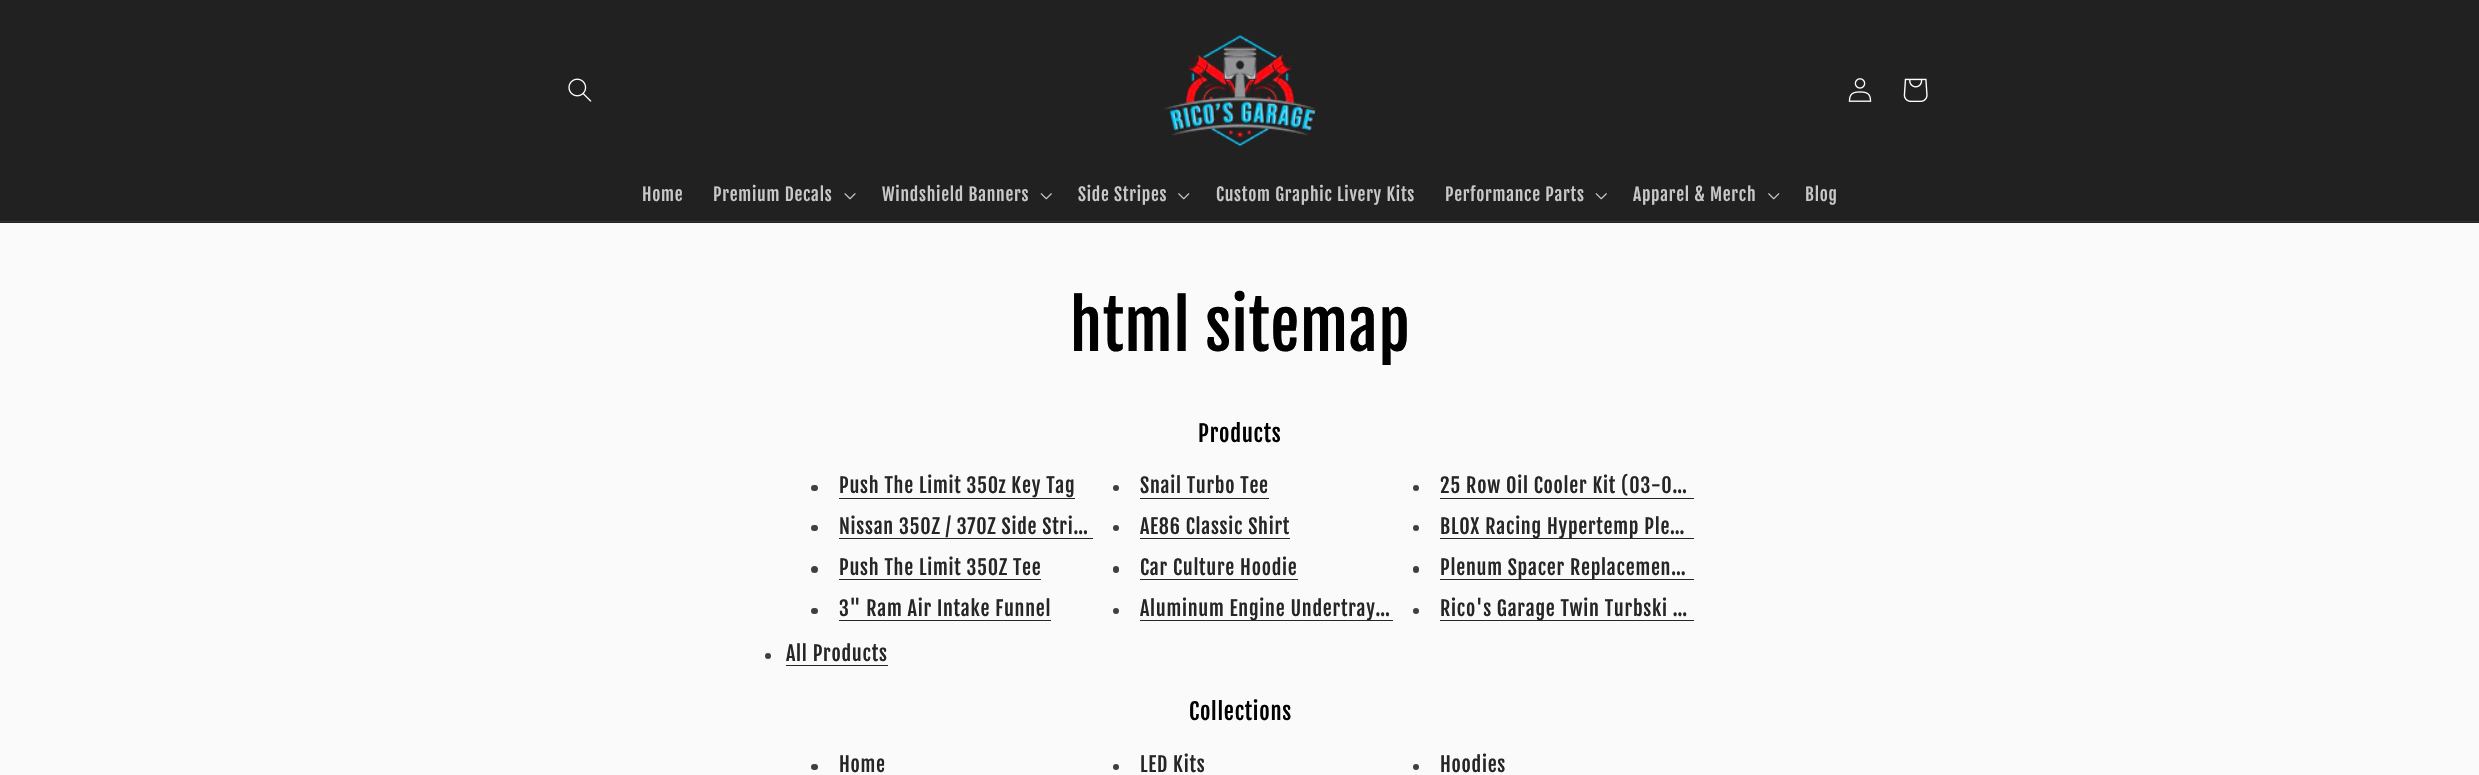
static SkFont makeFont(const char* family, int weight, float size, bool italic = false) {
  SkFontStyle style(weight, SkFontStyle::kNormal_Width,
    italic ? SkFontStyle::kItalic_Slant : SkFontStyle::kUpright_Slant);
  SkFont result(fontMgr->matchFamilyStyle(family, style), size);
  result.setSubpixel(true);
  return result;
}

static void spacedText(SkCanvas* c, const char* s, float x, float y, const SkFont& font, const SkPaint& ink, float letter, float word) {
  std::vector<SkGlyphID> glyphs(font.countText(s, strlen(s), SkTextEncoding::kUTF8));
  std::vector<float> xs(glyphs.size());
  font.textToGlyphs(s, strlen(s), SkTextEncoding::kUTF8, glyphs);
  font.getXPos(glyphs, xs, x);
  float extra = 0;
  for (size_t i = 0; i < glyphs.size(); i++) {
    xs[i] += extra;
    extra += letter + word * (glyphs[i] == font.unicharToGlyph(' '));
  }
  c->drawTextBlob(SkTextBlob::MakeFromPosHGlyphs(glyphs, xs, y, font), 0, 0, ink);
}

static void box(SkCanvas* c, float l, float t, float r, float b, SkColor color) {
  SkPaint ink(SkColor4f::FromColor(color));
  ink.setAntiAlias(true);
  c->drawRect(SkRect::MakeLTRB(l, t, r, b), ink);
}

static void roundBox(SkCanvas* c, float l, float t, float r, float b, float radius, SkColor color) {
  SkPaint ink(SkColor4f::FromColor(color));
  ink.setAntiAlias(true);
  c->drawRoundRect(SkRect::MakeLTRB(l, t, r, b), radius, radius, ink);
}

static void picture(SkCanvas* c, const char* path, float l, float t, float r, float b) {
  auto image = SkImages::DeferredFromEncodedData(SkData::MakeFromFileName(path));
  c->drawImageRect(image, SkRect::MakeLTRB(l, t, r, b), SkSamplingOptions());
}

void draw(SkCanvas* c) {
  SkPaint paint;
  paint.setAntiAlias(true);
  c->clear(0xfffafafa);
  box(c, 0, 0, 2479, 223, 0xff212121);
  box(c, 0, 221, 2479, 222, 0xff333333);
  picture(c, "img_01.png", 568, 78, 592, 102);
  picture(c, "img_02.png", 1163, 35, 1317, 147);
  picture(c, "img_03.png", 1848, 78, 1872, 102);
  picture(c, "img_04.png", 1903, 78, 1928, 102);
  SkFont face1 = makeFont("Fjalla One", 400, 17.5f);
  paint.setColor(0xffc8c8c8);
  spacedText(c, "Home", 642, 201, face1, paint, 0.75f, 0);
  spacedText(c, "Premium Decals", 713, 201, face1, paint, 0.75f, 0);
  picture(c, "img_05.png", 844, 193, 856, 200);
  spacedText(c, "Windshield Banners", 882, 201, face1, paint, 0.75f, 0);
  picture(c, "img_06.png", 1040, 193, 1052, 200);
  spacedText(c, "Side Stripes", 1078, 201, face1, paint, 0.75f, 0);
  picture(c, "img_07.png", 1178, 193, 1190, 200);
  spacedText(c, "Custom Graphic Livery Kits", 1216, 201, face1, paint, 0.75f, 0);
  spacedText(c, "Performance Parts", 1445, 201, face1, paint, 0.75f, 0);
  picture(c, "img_06.png", 1595, 193, 1607, 200);
  spacedText(c, "Apparel & Merch", 1633, 201, face1, paint, 0.75f, 0);
  picture(c, "img_07.png", 1768, 193, 1780, 200);
  spacedText(c, "Blog", 1805, 201, face1, paint, 0.75f, 0);
  SkFont face2 = makeFont("Fjalla One", 400, 65);
  paint.setColor(0xff000000);
  spacedText(c, "html sitemap", 1070, 351, face2, paint, 0.75f, 0);
  SkFont face3 = makeFont("Fjalla One", 400, 22.5f);
  spacedText(c, "Products", 1198, 442, face3, paint, 0.75f, 0);
  roundBox(c, 811, 485, 818, 491, 3, 0xff3f3f3f);
  SkFont face4 = makeFont("Fjalla One", 400, 20);
  paint.setColor(0xff262626);
  spacedText(c, "Push The Limit 350z Key Tag", 839, 493, face4, paint, 0.75f, 0);
  box(c, 839, 498, 1075, 499, 0xff262626);
  paint.setColor(0xff3f3f3f);
  c->drawCircle(1116, 488, 3, paint);
  paint.setColor(0xff262626);
  spacedText(c, "Snail Turbo Tee", 1140, 493, face4, paint, 0.75f, 0);
  box(c, 1140, 498, 1269, 499, 0xff262626);
  paint.setColor(0xff3f3f3f);
  c->drawCircle(1416, 488, 3, paint);
  paint.setColor(0xff262626);
  spacedText(c, "25 Row Oil Cooler Kit (03-0…", 1440, 493, face4, paint, 0.75f, 0);
  box(c, 1440, 498, 1694, 499, 0xff262626);
  roundBox(c, 811, 525, 818, 531, 3, 0xff3f3f3f);
  spacedText(c, "Nissan 350Z / 370Z Side Stri…", 839, 534, face4, paint, 0.75f, 0);
  box(c, 839, 538, 1093, 539, 0xff262626);
  paint.setColor(0xff3f3f3f);
  c->drawCircle(1116, 528, 3, paint);
  paint.setColor(0xff262626);
  spacedText(c, "AE86 Classic Shirt", 1140, 534, face4, paint, 0.75f, 0);
  box(c, 1140, 538, 1290, 539, 0xff262626);
  paint.setColor(0xff3f3f3f);
  c->drawCircle(1416, 528, 3, paint);
  box(c, 1440, 538, 1694, 539, 0xff262626);
  paint.setColor(0xff262626);
  spacedText(c, "BLOX Racing Hypertemp Ple…", 1440, 534, face4, paint, 0.75f, 0);
  paint.setColor(0xff3f3f3f);
  c->drawCircle(814.5f, 569.5f, 3.5f, paint);
  paint.setColor(0xff262626);
  spacedText(c, "Push The Limit 350Z Tee", 839, 575, face4, paint, 0.75f, 0);
  box(c, 839, 579, 1041, 580, 0xff262626);
  roundBox(c, 1113, 566, 1119, 573, 3, 0xff3f3f3f);
  spacedText(c, "Car Culture Hoodie", 1140, 575, face4, paint, 0.75f, 0);
  box(c, 1140, 579, 1298, 580, 0xff262626);
  roundBox(c, 1413, 566, 1419, 573, 3, 0xff3f3f3f);
  box(c, 1440, 579, 1694, 580, 0xff262626);
  spacedText(c, "Plenum Spacer Replacemen…", 1440, 575, face4, paint, 0.75f, 0);
  roundBox(c, 811, 608, 818, 614, 3, 0xff3f3f3f);
  spacedText(c, "3\" Ram Air Intake Funnel", 839, 616, face4, paint, 0.75f, 0);
  box(c, 839, 620, 1051, 621, 0xff262626);
  paint.setColor(0xff3f3f3f);
  c->drawCircle(1116, 611, 3, paint);
  box(c, 1140, 620, 1393, 621, 0xff262626);
  paint.setColor(0xff262626);
  spacedText(c, "Aluminum Engine Undertray…", 1140, 616, face4, paint, 0.75f, 0);
  paint.setColor(0xff3f3f3f);
  c->drawCircle(1416, 611, 3, paint);
  box(c, 1440, 620, 1694, 621, 0xff262626);
  paint.setColor(0xff262626);
  spacedText(c, "Rico's Garage Twin Turbski …", 1440, 616, face4, paint, 0.75f, 0);
  paint.setColor(0xff3f3f3f);
  c->drawCircle(768, 656, 3, paint);
  paint.setColor(0xff262626);
  spacedText(c, "All Products", 786, 661, face4, paint, 0.75f, 0);
  box(c, 786, 665, 888, 666, 0xff262626);
  paint.setColor(0xff000000);
  spacedText(c, "Collections", 1189, 720, face3, paint, 0.75f, 0);
  roundBox(c, 811, 764, 818, 770, 3, 0xff3f3f3f);
  paint.setColor(0xff262626);
  spacedText(c, "Home", 839, 772, face4, paint, 0.75f, 0);
  paint.setColor(0xff3f3f3f);
  c->drawCircle(1116, 767, 3, paint);
  paint.setColor(0xff262626);
  spacedText(c, "LED Kits", 1140, 772, face4, paint, 0.75f, 0);
  paint.setColor(0xff3f3f3f);
  c->drawCircle(1416, 767, 3, paint);
  paint.setColor(0xff262626);
  spacedText(c, "Hoodies", 1440, 772, face4, paint, 0.75f, 0);
}
